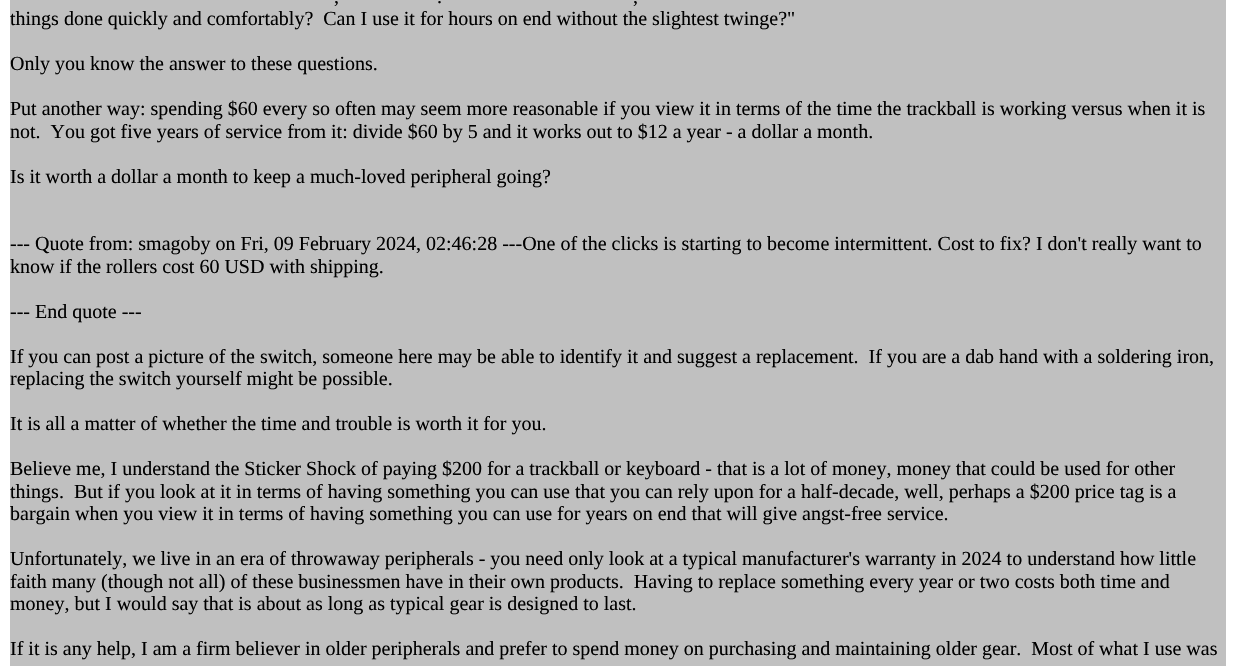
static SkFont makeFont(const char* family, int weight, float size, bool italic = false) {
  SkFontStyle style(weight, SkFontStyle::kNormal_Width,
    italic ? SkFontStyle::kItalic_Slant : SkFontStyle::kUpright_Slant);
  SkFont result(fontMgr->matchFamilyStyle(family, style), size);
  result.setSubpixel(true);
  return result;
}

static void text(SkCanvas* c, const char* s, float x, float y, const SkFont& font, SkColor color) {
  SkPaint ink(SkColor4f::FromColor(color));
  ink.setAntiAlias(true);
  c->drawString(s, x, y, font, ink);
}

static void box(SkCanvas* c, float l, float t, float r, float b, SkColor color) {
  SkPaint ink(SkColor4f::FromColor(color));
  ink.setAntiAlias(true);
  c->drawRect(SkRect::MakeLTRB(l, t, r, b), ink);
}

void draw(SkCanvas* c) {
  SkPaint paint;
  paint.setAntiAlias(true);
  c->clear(0xffffffff);
  box(c, 10, 0, 1226, 666, 0xffc0c0c0);
  SkFont face1 = makeFont("Liberation Serif", 400, 20);
  text(c, ",", 334, 3, face1, 0xff000000);
  text(c, ".", 437, 3, face1, 0xff000000);
  text(c, ",", 633, 3, face1, 0xff000000);
  text(c, "things done quickly and comfortably?  Can I use it for hours on end without the slightest twinge?\"", 10, 25, face1, 0xff000000);
  text(c, "Only you know the answer to these questions.", 10, 70, face1, 0xff000000);
  text(c, "Put another way: spending $60 every so often may seem more reasonable if you view it in terms of the time the trackball is working versus when it is", 10, 115, face1, 0xff000000);
  text(c, "not.  You got five years of service from it: divide $60 by 5 and it works out to $12 a year - a dollar a month.", 10, 138, face1, 0xff000000);
  text(c, "Is it worth a dollar a month to keep a much-loved peripheral going?", 10, 183, face1, 0xff000000);
  text(c, "--- Quote from: smagoby on Fri, 09 February 2024, 02:46:28 ---One of the clicks is starting to become intermittent. Cost to fix? I don't really want to", 10, 250, face1, 0xff000000);
  text(c, "know if the rollers cost 60 USD with shipping.", 10, 273, face1, 0xff000000);
  text(c, "--- End quote ---", 10, 318, face1, 0xff000000);
  text(c, "If you can post a picture of the switch, someone here may be able to identify it and suggest a replacement.  If you are a dab hand with a soldering iron,", 10, 363, face1, 0xff000000);
  text(c, "replacing the switch yourself might be possible.", 10, 385, face1, 0xff000000);
  text(c, "It is all a matter of whether the time and trouble is worth it for you.", 10, 430, face1, 0xff000000);
  text(c, "Believe me, I understand the Sticker Shock of paying $200 for a trackball or keyboard - that is a lot of money, money that could be used for other", 10, 475, face1, 0xff000000);
  text(c, "things.  But if you look at it in terms of having something you can use that you can rely upon for a half-decade, well, perhaps a $200 price tag is a", 10, 498, face1, 0xff000000);
  text(c, "bargain when you view it in terms of having something you can use for years on end that will give angst-free service.", 10, 520, face1, 0xff000000);
  text(c, "Unfortunately, we live in an era of throwaway peripherals - you need only look at a typical manufacturer's warranty in 2024 to understand how little", 10, 565, face1, 0xff000000);
  text(c, "faith many (though not all) of these businessmen have in their own products.  Having to replace something every year or two costs both time and", 10, 588, face1, 0xff000000);
  text(c, "money, but I would say that is about as long as typical gear is designed to last.", 10, 610, face1, 0xff000000);
  text(c, "If it is any help, I am a firm believer in older peripherals and prefer to spend money on purchasing and maintaining older gear.  Most of what I use was", 10, 655, face1, 0xff000000);
}
